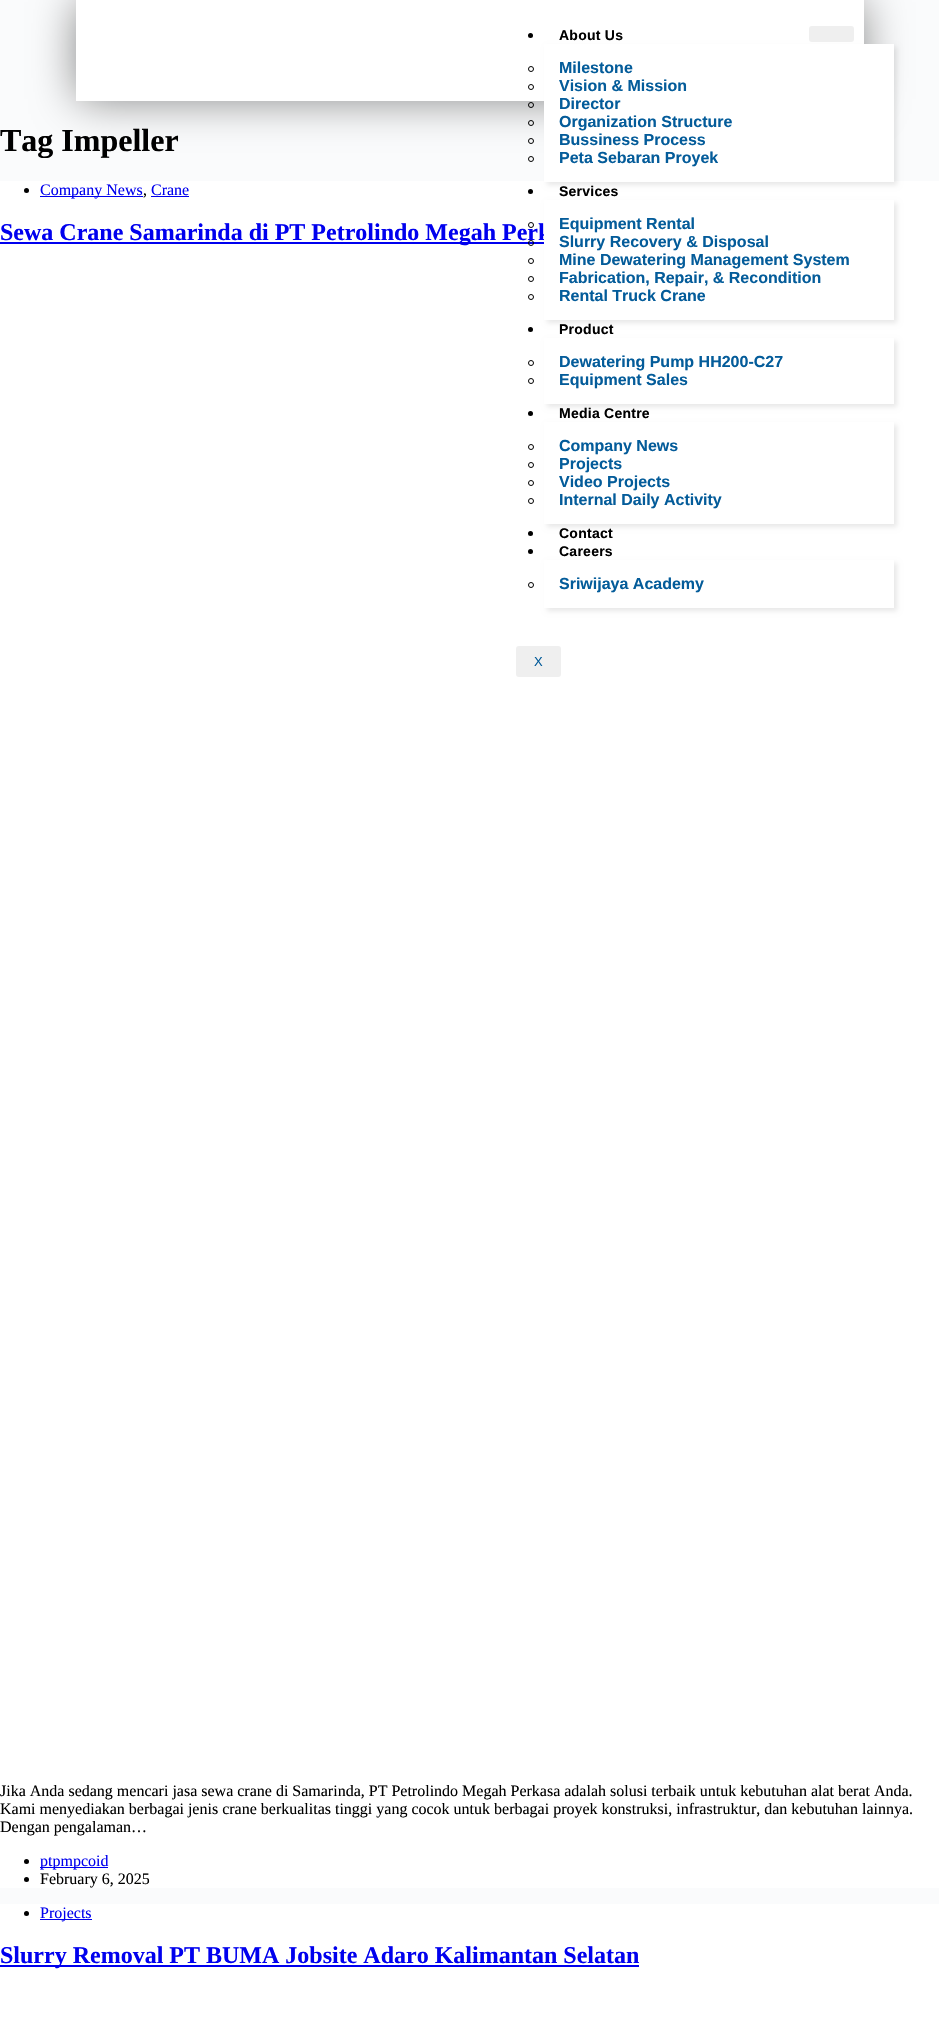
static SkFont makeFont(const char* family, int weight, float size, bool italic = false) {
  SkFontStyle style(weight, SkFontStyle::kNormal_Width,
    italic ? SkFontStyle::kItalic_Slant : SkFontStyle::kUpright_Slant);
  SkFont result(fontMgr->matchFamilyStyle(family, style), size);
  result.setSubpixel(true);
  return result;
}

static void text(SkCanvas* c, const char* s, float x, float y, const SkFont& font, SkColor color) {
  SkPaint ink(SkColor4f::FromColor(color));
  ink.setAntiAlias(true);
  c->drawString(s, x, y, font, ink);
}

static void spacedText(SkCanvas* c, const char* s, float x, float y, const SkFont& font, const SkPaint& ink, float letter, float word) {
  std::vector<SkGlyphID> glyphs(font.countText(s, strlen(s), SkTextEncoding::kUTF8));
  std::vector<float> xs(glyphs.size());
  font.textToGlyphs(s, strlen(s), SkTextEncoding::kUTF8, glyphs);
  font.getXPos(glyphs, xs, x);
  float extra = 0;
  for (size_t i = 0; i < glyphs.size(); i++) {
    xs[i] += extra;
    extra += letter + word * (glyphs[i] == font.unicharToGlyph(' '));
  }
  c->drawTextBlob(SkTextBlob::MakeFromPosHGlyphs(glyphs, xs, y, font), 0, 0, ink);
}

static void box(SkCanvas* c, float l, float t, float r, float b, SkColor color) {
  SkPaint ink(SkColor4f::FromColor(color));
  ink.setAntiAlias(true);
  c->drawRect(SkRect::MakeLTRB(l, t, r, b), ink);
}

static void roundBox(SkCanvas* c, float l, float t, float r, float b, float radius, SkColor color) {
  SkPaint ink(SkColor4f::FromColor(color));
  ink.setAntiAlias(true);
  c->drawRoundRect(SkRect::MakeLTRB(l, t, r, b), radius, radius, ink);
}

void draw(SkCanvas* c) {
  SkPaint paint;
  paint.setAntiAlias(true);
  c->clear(0xfffafbfc);
  paint.setColor(0x80000000);
  paint.setMaskFilter(SkMaskFilter::MakeBlur(kNormal_SkBlurStyle, 22.5f));
  c->drawRect(SkRect::MakeLTRB(78, 2, 862, 99), paint);
  paint.setMaskFilter(nullptr);
  box(c, 76, 0, 864, 101, 0xffffffff);
  box(c, 0, 181, 939, 1888, 0xffffffff);
  paint.setColor(0x17000000);
  paint.setMaskFilter(SkMaskFilter::MakeBlur(kNormal_SkBlurStyle, 2.5f));
  c->drawRect(SkRect::MakeLTRB(547, 47, 897, 185), paint);
  paint.setMaskFilter(nullptr);
  roundBox(c, 809, 26, 854, 42, 3, 0xffefefef);
  paint.setColor(0xff000000);
  c->drawCircle(530.5f, 35.5f, 2.5f, paint);
  SkFont face1 = makeFont("Liberation Sans", 700, 14);
  spacedText(c, "About Us", 559, 40, face1, paint, 0.25f, 0);
  box(c, 544, 44, 894, 182, 0xffffffff);
  paint.setStyle(SkPaint::kStroke_Style);
  paint.setStrokeWidth(1);
  c->drawCircle(531, 69, 2.5f, paint);
  SkFont face2 = makeFont("Liberation Sans", 700, 16);
  text(c, "Milestone", 559, 73, face2, 0xff045c9a);
  c->drawCircle(531, 87, 2.5f, paint);
  text(c, "Vision & Mission", 559, 91, face2, 0xff045c9a);
  c->drawCircle(531, 105, 2.5f, paint);
  text(c, "Director", 559, 109, face2, 0xff045c9a);
  c->drawCircle(531, 123, 2.5f, paint);
  text(c, "Organization Structure", 559, 127, face2, 0xff045c9a);
  c->drawCircle(531, 141, 2.5f, paint);
  text(c, "Bussiness Process", 559, 145, face2, 0xff045c9a);
  c->drawCircle(531, 159, 2.5f, paint);
  text(c, "Peta Sebaran Proyek", 559, 163, face2, 0xff045c9a);
  paint.setStyle(SkPaint::kFill_Style);
  c->drawCircle(530.5f, 191.5f, 2.5f, paint);
  box(c, 0, 242, 544, 244, 0xff0000ee);
  paint.setColor(0x17000000);
  paint.setMaskFilter(SkMaskFilter::MakeBlur(kNormal_SkBlurStyle, 2.5f));
  c->drawRect(SkRect::MakeLTRB(547, 203, 897, 323), paint);
  paint.setMaskFilter(nullptr);
  paint.setColor(0xff000000);
  spacedText(c, "Services", 559, 196, face1, paint, 0.25f, 0);
  SkFont face3 = makeFont("Liberation Serif", 700, 24);
  text(c, "Sewa Crane Samarinda di PT Petrolindo Megah Perk", 0, 240, face3, 0xff0000ee);
  box(c, 544, 200, 894, 320, 0xffffffff);
  paint.setStyle(SkPaint::kStroke_Style);
  c->drawCircle(531, 225, 2.5f, paint);
  text(c, "Equipment Rental", 559, 229, face2, 0xff045c9a);
  c->drawCircle(531, 243, 2.5f, paint);
  text(c, "Slurry Recovery & Disposal", 559, 247, face2, 0xff045c9a);
  c->drawCircle(531, 261, 2.5f, paint);
  text(c, "Mine Dewatering Management System", 559, 265, face2, 0xff045c9a);
  c->drawCircle(531, 279, 2.5f, paint);
  text(c, "Fabrication, Repair, & Recondition", 559, 283, face2, 0xff045c9a);
  c->drawCircle(531, 297, 2.5f, paint);
  text(c, "Rental Truck Crane", 559, 301, face2, 0xff045c9a);
  paint.setStyle(SkPaint::kFill_Style);
  c->drawCircle(530.5f, 329.5f, 2.5f, paint);
  c->save();
  c->clipPath(SkPathBuilder(SkPathFillType::kEvenOdd).moveTo(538, 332).lineTo(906, 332).lineTo(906, 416).lineTo(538, 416).close().moveTo(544, 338).lineTo(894, 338).lineTo(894, 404).lineTo(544, 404).close().detach(), true);
  paint.setColor(0x17000000);
  paint.setMaskFilter(SkMaskFilter::MakeBlur(kNormal_SkBlurStyle, 2.5f));
  c->drawRect(SkRect::MakeLTRB(547, 341, 897, 407), paint);
  paint.setMaskFilter(nullptr);
  c->restore();
  paint.setColor(0xff000000);
  spacedText(c, "Product", 559, 334, face1, paint, 0.25f, 0);
  paint.setStyle(SkPaint::kStroke_Style);
  c->drawCircle(531, 363, 2.5f, paint);
  text(c, "Dewatering Pump HH200-C27", 559, 367, face2, 0xff045c9a);
  c->drawCircle(531, 381, 2.5f, paint);
  text(c, "Equipment Sales", 559, 385, face2, 0xff045c9a);
  paint.setStyle(SkPaint::kFill_Style);
  c->drawCircle(530.5f, 413.5f, 2.5f, paint);
  c->save();
  c->clipPath(SkPathBuilder(SkPathFillType::kEvenOdd).moveTo(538, 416).lineTo(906, 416).lineTo(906, 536).lineTo(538, 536).close().moveTo(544, 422).lineTo(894, 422).lineTo(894, 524).lineTo(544, 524).close().detach(), true);
  paint.setColor(0x17000000);
  paint.setMaskFilter(SkMaskFilter::MakeBlur(kNormal_SkBlurStyle, 2.5f));
  c->drawRect(SkRect::MakeLTRB(547, 425, 897, 527), paint);
  paint.setMaskFilter(nullptr);
  c->restore();
  paint.setColor(0xff000000);
  spacedText(c, "Media Centre", 559, 418, face1, paint, 0.25f, 0);
  paint.setStyle(SkPaint::kStroke_Style);
  c->drawCircle(531, 447, 2.5f, paint);
  text(c, "Company News", 559, 451, face2, 0xff045c9a);
  c->drawCircle(531, 465, 2.5f, paint);
  text(c, "Projects", 559, 469, face2, 0xff045c9a);
  c->drawCircle(531, 483, 2.5f, paint);
  text(c, "Video Projects", 559, 487, face2, 0xff045c9a);
  c->drawCircle(531, 501, 2.5f, paint);
  text(c, "Internal Daily Activity", 559, 505, face2, 0xff045c9a);
  paint.setStyle(SkPaint::kFill_Style);
  c->drawCircle(530.5f, 533.5f, 2.5f, paint);
  spacedText(c, "Contact", 559, 538, face1, paint, 0.25f, 0);
  c->drawCircle(530.5f, 551.5f, 2.5f, paint);
  c->save();
  c->clipPath(SkPathBuilder(SkPathFillType::kEvenOdd).moveTo(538, 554).lineTo(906, 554).lineTo(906, 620).lineTo(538, 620).close().moveTo(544, 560).lineTo(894, 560).lineTo(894, 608).lineTo(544, 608).close().detach(), true);
  paint.setColor(0x17000000);
  paint.setMaskFilter(SkMaskFilter::MakeBlur(kNormal_SkBlurStyle, 2.5f));
  c->drawRect(SkRect::MakeLTRB(547, 563, 897, 611), paint);
  paint.setMaskFilter(nullptr);
  c->restore();
  paint.setColor(0xff000000);
  spacedText(c, "Careers", 559, 556, face1, paint, 0.25f, 0);
  paint.setStyle(SkPaint::kStroke_Style);
  c->drawCircle(531, 585, 2.5f, paint);
  text(c, "Sriwijaya Academy", 559, 589, face2, 0xff045c9a);
  roundBox(c, 516, 646, 561, 677, 3, 0xffefefef);
  SkFont face4 = makeFont("Liberation Sans", 400, 13);
  text(c, "X", 534, 666, face4, 0xff045c9a);
  SkFont face5 = makeFont("Liberation Serif", 700, 32);
  text(c, "Tag Impeller", 0, 151, face5, 0xff000000);
  paint.setStyle(SkPaint::kFill_Style);
  c->drawCircle(26.5f, 190.5f, 2.5f, paint);
  box(c, 40, 196, 143, 197, 0xff0000ee);
  SkFont face6 = makeFont("Liberation Serif", 400, 16);
  text(c, "Company News", 40, 195, face6, 0xff0000ee);
  text(c, "Crane", 151, 195, face6, 0xff0000ee);
  box(c, 151, 196, 189, 197, 0xff0000ee);
  text(c, ",", 143, 195, face6, 0xff000000);
  text(c, "Jika Anda sedang mencari jasa sewa crane di Samarinda, PT Petrolindo Megah Perkasa adalah solusi terbaik untuk kebutuhan alat berat Anda.", 0, 1796, face6, 0xff000000);
  text(c, "Kami menyediakan berbagai jenis crane berkualitas tinggi yang cocok untuk berbagai proyek konstruksi, infrastruktur, dan kebutuhan lainnya.", 0, 1814, face6, 0xff000000);
  text(c, "Dengan pengalaman…", 0, 1832, face6, 0xff000000);
  c->drawCircle(26.5f, 1861.5f, 2.5f, paint);
  box(c, 40, 1867, 108, 1868, 0xff0000ee);
  text(c, "ptpmpcoid", 40, 1866, face6, 0xff0000ee);
  c->drawCircle(26.5f, 1879.5f, 2.5f, paint);
  text(c, "February 6, 2025", 40, 1884, face6, 0xff000000);
  box(c, 0, 1904, 939, 2025, 0xffffffff);
  c->drawCircle(26.5f, 1913.5f, 2.5f, paint);
  box(c, 40, 1919, 92, 1920, 0xff0000ee);
  text(c, "Projects", 40, 1918, face6, 0xff0000ee);
  box(c, 0, 1965, 639, 1967, 0xff0000ee);
  text(c, "Slurry Removal PT BUMA Jobsite Adaro Kalimantan Selatan", 0, 1963, face3, 0xff0000ee);
}
